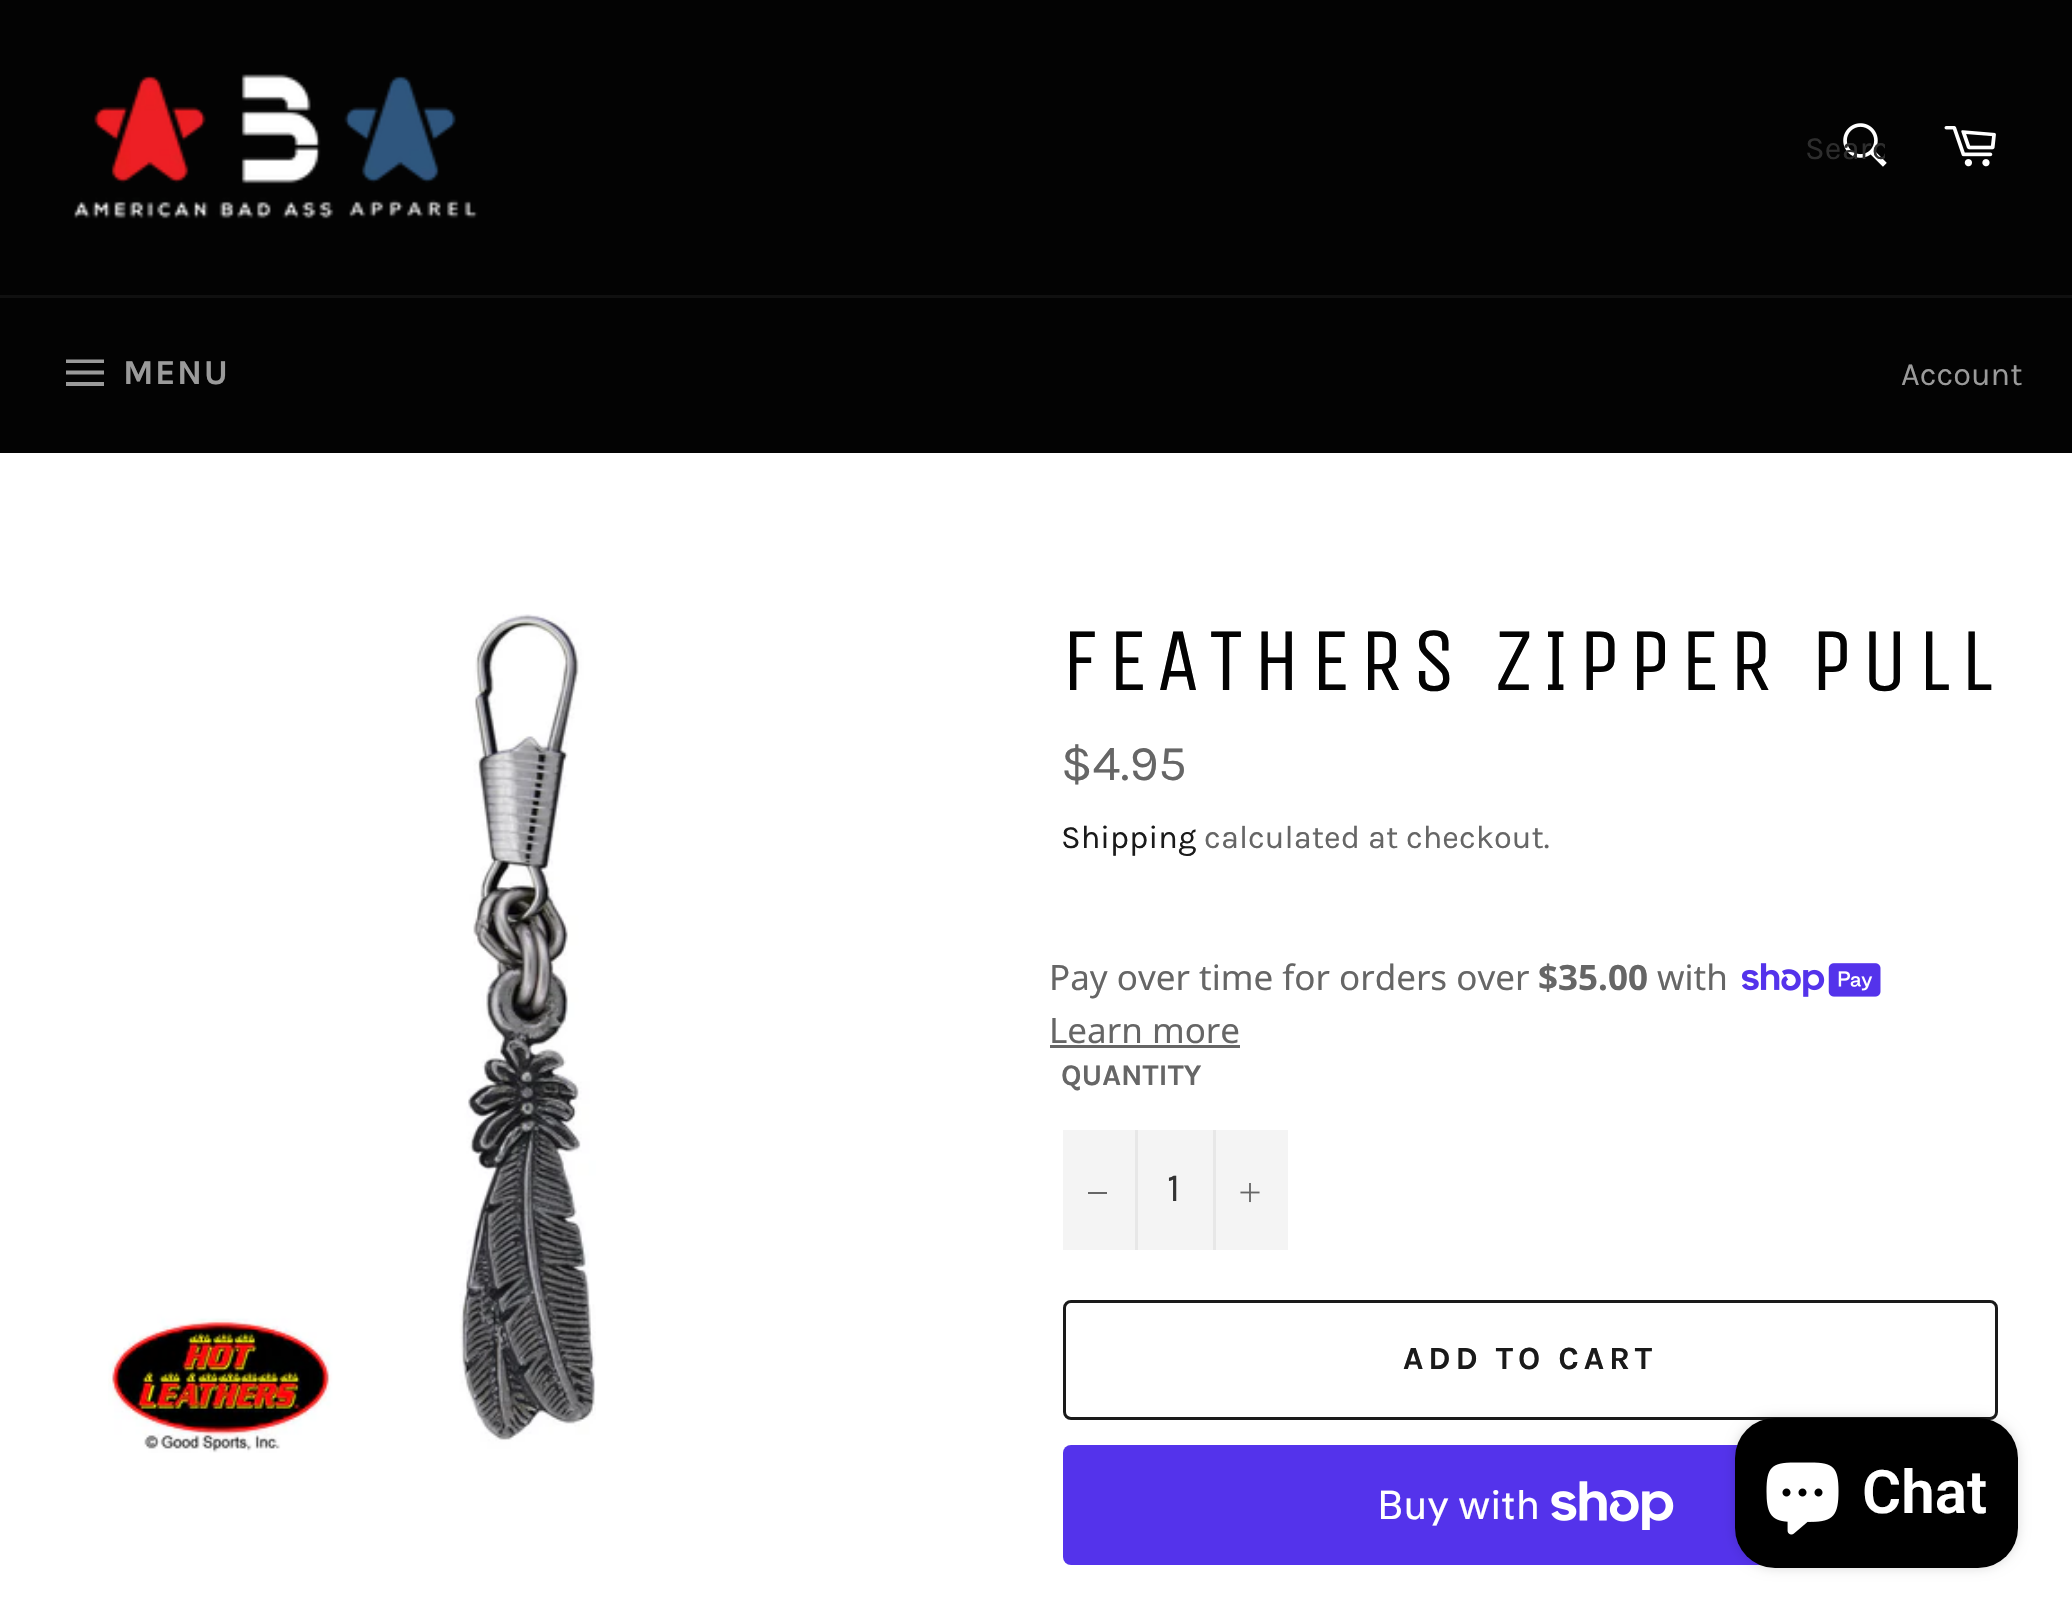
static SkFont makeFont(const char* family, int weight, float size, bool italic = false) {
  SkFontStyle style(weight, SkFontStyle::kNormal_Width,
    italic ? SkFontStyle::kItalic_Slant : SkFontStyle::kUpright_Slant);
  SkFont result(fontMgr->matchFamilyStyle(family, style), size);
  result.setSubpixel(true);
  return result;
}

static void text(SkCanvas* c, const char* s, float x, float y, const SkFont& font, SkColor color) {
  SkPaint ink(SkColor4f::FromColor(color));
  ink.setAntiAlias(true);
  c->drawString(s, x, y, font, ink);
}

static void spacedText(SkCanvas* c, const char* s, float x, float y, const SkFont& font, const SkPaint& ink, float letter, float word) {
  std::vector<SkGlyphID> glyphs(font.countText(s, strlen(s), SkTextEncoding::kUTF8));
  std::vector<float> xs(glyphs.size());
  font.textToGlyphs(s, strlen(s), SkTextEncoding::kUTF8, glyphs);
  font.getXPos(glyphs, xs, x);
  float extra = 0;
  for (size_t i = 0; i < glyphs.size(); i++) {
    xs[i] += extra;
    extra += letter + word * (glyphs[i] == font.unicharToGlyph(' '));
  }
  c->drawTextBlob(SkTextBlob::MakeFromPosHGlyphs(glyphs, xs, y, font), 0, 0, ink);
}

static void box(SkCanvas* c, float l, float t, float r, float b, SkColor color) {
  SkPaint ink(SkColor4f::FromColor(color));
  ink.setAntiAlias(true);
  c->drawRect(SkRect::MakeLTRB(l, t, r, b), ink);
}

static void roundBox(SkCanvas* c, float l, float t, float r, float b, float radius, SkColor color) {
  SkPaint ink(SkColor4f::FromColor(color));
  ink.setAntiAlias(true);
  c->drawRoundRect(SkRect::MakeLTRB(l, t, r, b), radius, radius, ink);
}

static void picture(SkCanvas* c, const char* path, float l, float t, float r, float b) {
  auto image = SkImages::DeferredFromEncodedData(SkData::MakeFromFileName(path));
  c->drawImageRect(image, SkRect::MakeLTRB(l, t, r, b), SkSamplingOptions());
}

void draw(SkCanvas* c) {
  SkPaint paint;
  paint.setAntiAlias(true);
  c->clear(0xffffffff);
  box(c, 0, 0, 2072, 295, 0xff030303);
  picture(c, "img_01.png", 73, 74, 478, 219);
  picture(c, "img_02.png", 1843, 123, 1887, 167);
  c->save();
  c->clipRect(SkRect::MakeLTRB(1805, 130, 1885, 168));
  SkFont face1 = makeFont("Karla", 400, 32.5f);
  text(c, "Searc", 1805, 159, face1, 0xff2d2d2d);
  c->restore();
  picture(c, "img_03.png", 1944, 126, 1996, 167);
  box(c, 0, 298, 2072, 453, 0xff030303);
  box(c, 0, 295, 2072, 298, 0xff101010);
  paint.setColor(0xff9a9a9a);
  c->drawPath(SkPathBuilder().moveTo(66, 370.5f).lineTo(104, 370.5f).lineTo(104, 374.5f).lineTo(66, 374.5f).close().moveTo(66, 359.5f).lineTo(104, 359.5f).lineTo(104, 363).lineTo(66, 363).close().moveTo(66, 382).lineTo(104, 382).lineTo(104, 386).lineTo(66, 386).close().detach(), paint);
  SkFont face2 = makeFont("Karla", 700, 35);
  spacedText(c, "MENU", 123, 384, face2, paint, 1.5f, 0);
  text(c, "Account", 1901, 385, face1, 0xff9a9a9a);
  picture(c, "img_04.png", 108, 614, 596, 1453);
  SkFont face3 = makeFont("Unica One", 400, 90);
  paint.setColor(0xff030303);
  spacedText(c, "FEATHERS ZIPPER PULL", 1061, 690, face3, paint, 9, 0);
  SkFont face4 = makeFont("Karla", 400, 50);
  text(c, "$4.95", 1061, 780, face4, 0xff666666);
  text(c, "Shipping", 1061, 848, face1, 0xff1a1a1a);
  text(c, "calculated at checkout.", 1204, 848, face1, 0xff666666);
  SkFont face5 = makeFont("Noto Sans", 400, 35);
  text(c, "Pay over time for orders over", 1049, 990, face5, 0xff666666);
  SkFont face6 = makeFont("Noto Sans", 700, 35);
  text(c, "$35.00", 1538, 990, face6, 0xff666666);
  text(c, "with", 1657, 990, face5, 0xff666666);
  picture(c, "img_05.png", 1742, 963, 1881, 997);
  text(c, "Learn more", 1049, 1043, face5, 0xff666666);
  box(c, 1050, 1045, 1240, 1048, 0xff666666);
  SkFont face7 = makeFont("Karla", 700, 30);
  text(c, "QUANTITY", 1061, 1085, face7, 0xff666666);
  box(c, 1063, 1130, 1288, 1250, 0xfff4f4f4);
  box(c, 1135, 1130, 1138, 1250, 0xffe7e7e7);
  box(c, 1088, 1192, 1107, 1194, 0xff666666);
  SkFont face8 = makeFont("Karla", 400, 40);
  text(c, "1", 1167, 1201, face8, 0xff333333);
  box(c, 1213, 1130, 1216, 1250, 0xffe7e7e7);
  picture(c, "img_06.png", 1240, 1183, 1260, 1203);
  paint.setStyle(SkPaint::kStroke_Style);
  paint.setStrokeWidth(3);
  paint.setColor(0xff1a1a1a);
  c->drawRoundRect(SkRect::MakeLTRB(1064.5f, 1301.5f, 1996.5f, 1418.5f), 6.5f, 6.5f, paint);
  SkFont face9 = makeFont("Karla", 700, 32.5f);
  paint.setStyle(SkPaint::kFill_Style);
  spacedText(c, "ADD TO CART", 1403, 1369, face9, paint, 4.9f, 0);
  roundBox(c, 1063, 1445, 1998, 1565, 8, 0xff5433eb);
  SkFont face10 = makeFont("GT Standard", 400, 40);
  text(c, "Buy with", 1377, 1519, face10, 0xffffffff);
  picture(c, "img_07.png", 1551, 1481, 1674, 1530);
  paint.setColor(0x26000000);
  paint.setMaskFilter(SkMaskFilter::MakeBlur(kNormal_SkBlurStyle, 6));
  c->drawRoundRect(SkRect::MakeLTRB(1735, 1418, 2018, 1568), 40, 40, paint);
  paint.setMaskFilter(nullptr);
  roundBox(c, 1735, 1418, 2018, 1568, 40, 0xff000000);
  picture(c, "img_08.png", 1766, 1462, 1839, 1535);
  SkFont face11 = makeFont("Roboto", 600, 60);
  text(c, "Chat", 1862, 1513, face11, 0xffffffff);
}
